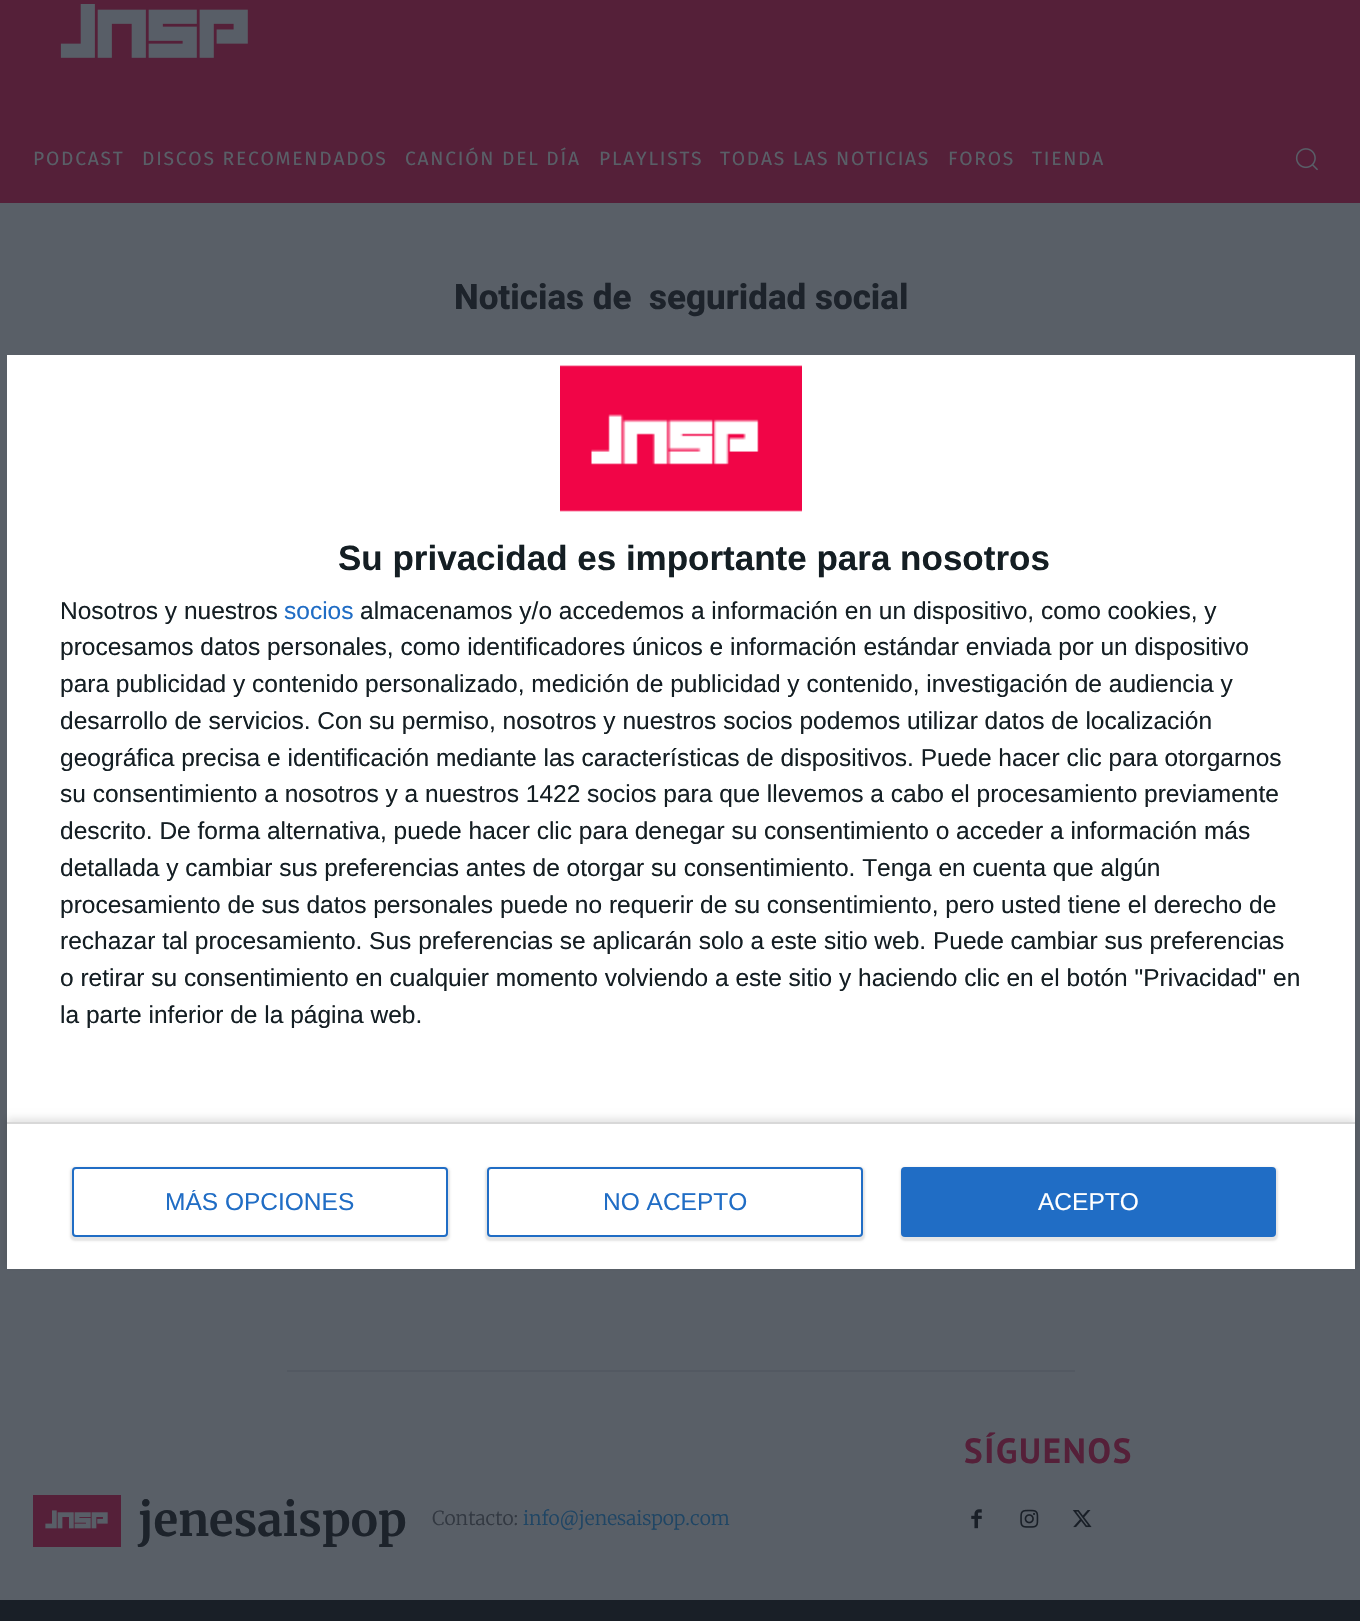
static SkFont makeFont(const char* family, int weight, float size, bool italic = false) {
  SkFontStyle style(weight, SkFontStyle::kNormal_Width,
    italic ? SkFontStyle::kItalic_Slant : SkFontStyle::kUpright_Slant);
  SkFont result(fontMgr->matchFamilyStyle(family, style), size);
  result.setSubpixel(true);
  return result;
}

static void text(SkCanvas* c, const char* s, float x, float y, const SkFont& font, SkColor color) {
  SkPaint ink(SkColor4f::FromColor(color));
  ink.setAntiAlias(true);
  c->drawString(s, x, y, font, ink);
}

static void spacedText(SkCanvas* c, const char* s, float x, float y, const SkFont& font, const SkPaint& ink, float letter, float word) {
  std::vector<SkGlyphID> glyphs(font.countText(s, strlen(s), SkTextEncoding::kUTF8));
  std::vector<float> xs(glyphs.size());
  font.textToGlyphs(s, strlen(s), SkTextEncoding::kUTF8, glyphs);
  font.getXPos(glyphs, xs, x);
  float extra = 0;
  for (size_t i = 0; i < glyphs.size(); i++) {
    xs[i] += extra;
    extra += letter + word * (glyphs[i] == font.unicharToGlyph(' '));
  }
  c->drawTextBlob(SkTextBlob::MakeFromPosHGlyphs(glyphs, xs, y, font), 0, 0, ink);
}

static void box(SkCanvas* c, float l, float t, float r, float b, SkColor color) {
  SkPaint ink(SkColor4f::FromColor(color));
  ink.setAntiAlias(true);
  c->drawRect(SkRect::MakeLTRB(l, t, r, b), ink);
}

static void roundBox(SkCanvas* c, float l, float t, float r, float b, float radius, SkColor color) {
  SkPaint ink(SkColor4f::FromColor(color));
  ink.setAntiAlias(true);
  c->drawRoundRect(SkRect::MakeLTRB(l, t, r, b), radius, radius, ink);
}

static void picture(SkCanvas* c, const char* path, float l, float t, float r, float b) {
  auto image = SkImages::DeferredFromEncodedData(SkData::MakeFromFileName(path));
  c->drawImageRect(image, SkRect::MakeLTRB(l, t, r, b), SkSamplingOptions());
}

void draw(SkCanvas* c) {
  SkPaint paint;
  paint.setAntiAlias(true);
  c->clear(0xff595f67);
  box(c, 0, 0, 1360, 203, 0xff552039);
  picture(c, "img_01.png", 60, 4, 248, 58);
  SkFont face1 = makeFont("Fira Sans", 400, 19.25f);
  paint.setColor(0xff595f67);
  spacedText(c, "PODCAST", 33, 165, face1, paint, 1.75f, 0);
  spacedText(c, "DISCOS RECOMENDADOS", 142, 165, face1, paint, 1.75f, 0);
  spacedText(c, "CANCIÓN DEL DÍA", 405, 165, face1, paint, 1.75f, 0);
  spacedText(c, "PLAYLISTS", 599, 165, face1, paint, 1.75f, 0);
  spacedText(c, "TODAS LAS NOTICIAS", 720, 165, face1, paint, 1.75f, 0);
  spacedText(c, "FOROS", 948, 165, face1, paint, 1.75f, 0);
  spacedText(c, "TIENDA", 1032, 165, face1, paint, 1.75f, 0);
  picture(c, "img_02.png", 1295, 148, 1318, 171);
  SkFont face2 = makeFont("Roboto", 800, 35);
  text(c, "Noticias de", 454, 309, face2, 0xff1d232b);
  text(c, "seguridad social", 649, 309, face2, 0xff1d232b);
  box(c, 287, 1370, 1075, 1372, 0xff535962);
  SkFont face3 = makeFont("PT Sans", 700, 35);
  paint.setColor(0xff552039);
  spacedText(c, "SÍGUENOS", 964, 1463, face3, paint, 1.75f, 0);
  picture(c, "img_03.png", 971, 1509, 982, 1529);
  picture(c, "img_04.png", 1020, 1509, 1039, 1528);
  picture(c, "img_05.png", 1072, 1510, 1092, 1528);
  picture(c, "img_06.png", 33, 1495, 121, 1547);
  SkFont face4 = makeFont("Merriweather", 700, 45.5f);
  text(c, "jenesaispop", 138, 1536, face4, 0xff1d232b);
  SkFont face5 = makeFont("Merriweather", 300, 19.25f);
  text(c, "Contacto:", 432, 1525, face5, 0xff323841);
  text(c, "info@jenesaispop.com", 523, 1525, face5, 0xff1f4564);
  box(c, 0, 1600, 1360, 1621, 0xff191f27);
  box(c, 7, 355, 1355, 1269, 0xffffffff);
  picture(c, "img_07.png", 560, 365, 802, 512);
  SkFont face6 = makeFont("Liberation Sans", 700, 35);
  text(c, "Su privacidad es importante para nosotros", 338, 570, face6, 0xff141e23);
  SkFont face7 = makeFont("Liberation Sans", 400, 24.5f);
  text(c, "Nosotros y nuestros", 60, 619, face7, 0xff141e23);
  text(c, "socios", 284, 619, face7, 0xff206dc5);
  text(c, "almacenamos y/o accedemos a información en un dispositivo, como cookies, y", 360, 619, face7, 0xff141e23);
  text(c, "procesamos datos personales, como identificadores únicos e información estándar enviada por un dispositivo", 60, 655, face7, 0xff141e23);
  text(c, "para publicidad y contenido personalizado, medición de publicidad y contenido, investigación de audiencia y", 60, 692, face7, 0xff141e23);
  text(c, "desarrollo de servicios. Con su permiso, nosotros y nuestros socios podemos utilizar datos de localización", 60, 729, face7, 0xff141e23);
  text(c, "geográfica precisa e identificación mediante las características de dispositivos. Puede hacer clic para otorgarnos", 60, 766, face7, 0xff141e23);
  text(c, "su consentimiento a nosotros y a nuestros 1422 socios para que llevemos a cabo el procesamiento previamente", 60, 802, face7, 0xff141e23);
  text(c, "descrito. De forma alternativa, puede hacer clic para denegar su consentimiento o acceder a información más", 60, 839, face7, 0xff141e23);
  text(c, "detallada y cambiar sus preferencias antes de otorgar su consentimiento. Tenga en cuenta que algún", 60, 876, face7, 0xff141e23);
  text(c, "procesamiento de sus datos personales puede no requerir de su consentimiento, pero usted tiene el derecho de", 60, 913, face7, 0xff141e23);
  text(c, "rechazar tal procesamiento. Sus preferencias se aplicarán solo a este sitio web. Puede cambiar sus preferencias", 60, 949, face7, 0xff141e23);
  text(c, "o retirar su consentimiento en cualquier momento volviendo a este sitio y haciendo clic en el botón \"Privacidad\" en", 60, 986, face7, 0xff141e23);
  text(c, "la parte inferior de la página web.", 60, 1023, face7, 0xff141e23);
  c->save();
  c->clipPath(SkPathBuilder(SkPathFillType::kEvenOdd).moveTo(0, 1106).lineTo(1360, 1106).lineTo(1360, 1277).lineTo(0, 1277).close().moveTo(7, 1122).lineTo(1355, 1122).lineTo(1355, 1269).lineTo(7, 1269).close().detach(), true);
  paint.setColor(0x1a000000);
  paint.setMaskFilter(SkMaskFilter::MakeBlur(kNormal_SkBlurStyle, 3.5f));
  c->drawRect(SkRect::MakeLTRB(7, 1118, 1355, 1265), paint);
  paint.setMaskFilter(nullptr);
  c->restore();
  box(c, 7, 1122, 1355, 1124, 0xffd8d8d8);
  paint.setMaskFilter(SkMaskFilter::MakeBlur(kNormal_SkBlurStyle, 1));
  c->drawRoundRect(SkRect::MakeLTRB(70, 1167, 450, 1241), 5, 5, paint);
  paint.setMaskFilter(nullptr);
  paint.setColor(0xffffffff);
  c->drawRoundRect(SkRect::MakeLTRB(73, 1168, 447, 1236), 3, 3, paint);
  paint.setStyle(SkPaint::kStroke_Style);
  paint.setStrokeWidth(2);
  paint.setColor(0xff206dc5);
  c->drawRoundRect(SkRect::MakeLTRB(73, 1168, 447, 1236), 3, 3, paint);
  c->save();
  c->clipRect(SkRect::MakeLTRB(165, 1190, 355, 1215));
  text(c, "MÁS OPCIONES", 165, 1210, face7, 0xff206dc5);
  c->restore();
  paint.setStyle(SkPaint::kFill_Style);
  paint.setColor(0x1a000000);
  paint.setMaskFilter(SkMaskFilter::MakeBlur(kNormal_SkBlurStyle, 1));
  c->drawRoundRect(SkRect::MakeLTRB(485, 1167, 865, 1241), 5, 5, paint);
  paint.setMaskFilter(nullptr);
  paint.setColor(0xffffffff);
  c->drawRoundRect(SkRect::MakeLTRB(488, 1168, 862, 1236), 3, 3, paint);
  paint.setStyle(SkPaint::kStroke_Style);
  paint.setColor(0xff206dc5);
  c->drawRoundRect(SkRect::MakeLTRB(488, 1168, 862, 1236), 3, 3, paint);
  text(c, "NO ACEPTO", 603, 1210, face7, 0xff206dc5);
  paint.setStyle(SkPaint::kFill_Style);
  paint.setColor(0x1a000000);
  paint.setMaskFilter(SkMaskFilter::MakeBlur(kNormal_SkBlurStyle, 1));
  c->drawRoundRect(SkRect::MakeLTRB(900, 1167, 1278, 1241), 5, 5, paint);
  paint.setMaskFilter(nullptr);
  roundBox(c, 901, 1167, 1276, 1237, 4, 0xff206dc5);
  text(c, "ACEPTO", 1038, 1210, face7, 0xffffffff);
}
